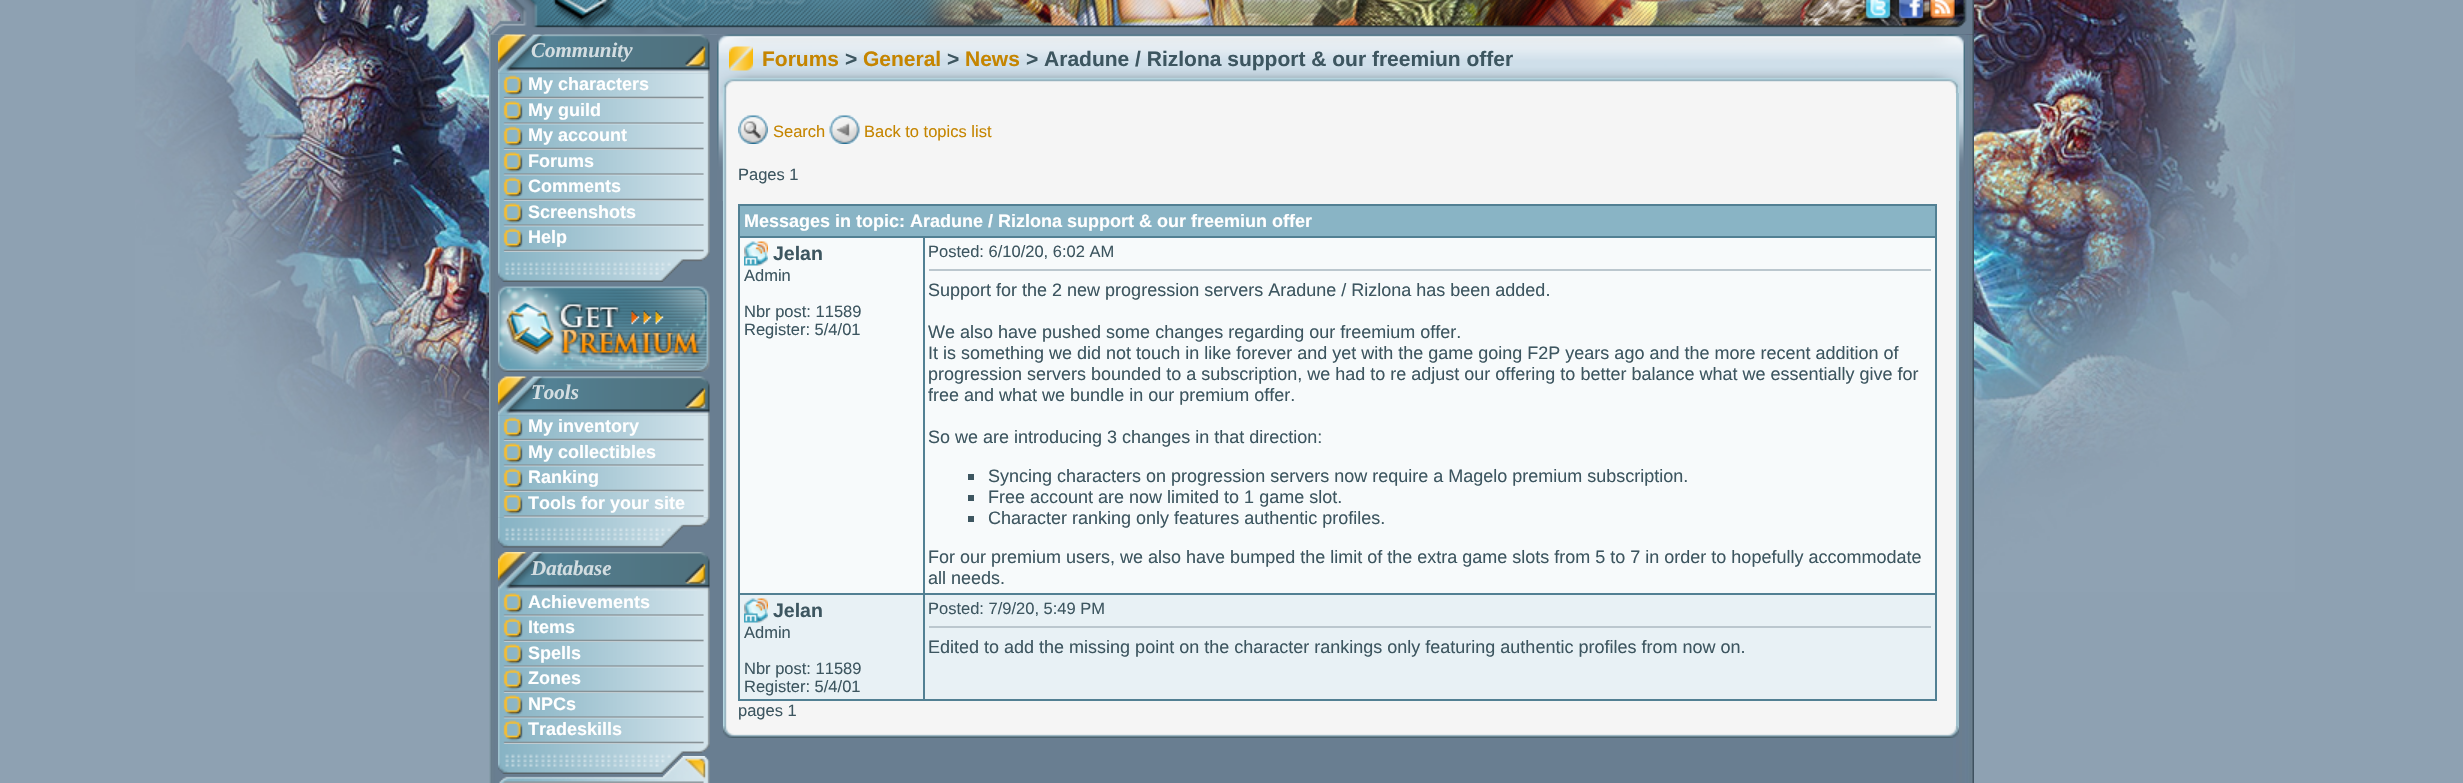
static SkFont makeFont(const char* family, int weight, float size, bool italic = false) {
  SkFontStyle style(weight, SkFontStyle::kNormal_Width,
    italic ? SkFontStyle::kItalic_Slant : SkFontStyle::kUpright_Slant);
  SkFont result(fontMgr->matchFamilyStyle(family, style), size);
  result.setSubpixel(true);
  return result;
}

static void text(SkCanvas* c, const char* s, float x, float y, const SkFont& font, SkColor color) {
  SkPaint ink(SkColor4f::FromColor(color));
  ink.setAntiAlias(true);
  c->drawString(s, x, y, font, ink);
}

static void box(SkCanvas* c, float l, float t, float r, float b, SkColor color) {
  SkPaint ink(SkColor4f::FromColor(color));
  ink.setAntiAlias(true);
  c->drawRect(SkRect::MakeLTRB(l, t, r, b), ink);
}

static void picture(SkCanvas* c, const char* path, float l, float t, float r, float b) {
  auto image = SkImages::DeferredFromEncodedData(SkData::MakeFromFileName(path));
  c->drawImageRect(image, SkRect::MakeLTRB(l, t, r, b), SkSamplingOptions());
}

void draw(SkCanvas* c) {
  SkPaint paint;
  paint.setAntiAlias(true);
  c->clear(0xff8ea1b2);
  picture(c, "img_01.png", 135, 0, 2295, 592);
  picture(c, "img_02.png", 489, 0, 1974, 35);
  picture(c, "img_03.png", 524, 0, 1967, 28);
  picture(c, "img_04.png", 553, 0, 820, 33);
  picture(c, "img_05.png", 1864, 0, 1892, 20);
  picture(c, "img_06.png", 1897, 0, 1925, 20);
  picture(c, "img_07.png", 1929, 0, 1956, 20);
  picture(c, "img_08.png", 489, 34, 1974, 783);
  picture(c, "img_09.png", 498, 34, 710, 74);
  SkFont face1 = makeFont("Liberation Serif", 700, 21, true);
  text(c, "Community", 531, 57, face1, 0xffd3dde1);
  picture(c, "img_10.png", 498, 73, 710, 252);
  picture(c, "img_11.png", 498, 73, 710, 99);
  SkFont face2 = makeFont("Liberation Sans", 700, 18);
  text(c, "My characters", 528, 90, face2, 0xffffffff);
  picture(c, "img_12.png", 503, 99, 710, 125);
  text(c, "My guild", 528, 116, face2, 0xffffffff);
  picture(c, "img_13.png", 503, 124, 710, 150);
  text(c, "My account", 528, 141, face2, 0xffffffff);
  picture(c, "img_12.png", 503, 150, 710, 176);
  text(c, "Forums", 528, 167, face2, 0xffffffff);
  picture(c, "img_13.png", 503, 175, 710, 201);
  text(c, "Comments", 528, 192, face2, 0xffffffff);
  picture(c, "img_12.png", 503, 201, 710, 227);
  text(c, "Screenshots", 528, 218, face2, 0xffffffff);
  picture(c, "img_13.png", 503, 226, 710, 252);
  text(c, "Help", 528, 243, face2, 0xffffffff);
  picture(c, "img_14.png", 498, 252, 710, 282);
  picture(c, "img_15.png", 498, 286, 710, 372);
  picture(c, "img_16.png", 498, 376, 710, 416);
  text(c, "Tools", 531, 399, face1, 0xffd3dde1);
  picture(c, "img_19.png", 498, 517, 710, 548);
  picture(c, "img_17.png", 498, 415, 710, 518);
  picture(c, "img_11.png", 498, 415, 710, 441);
  text(c, "My inventory", 528, 432, face2, 0xffffffff);
  picture(c, "img_12.png", 503, 441, 710, 467);
  text(c, "My collectibles", 528, 458, face2, 0xffffffff);
  picture(c, "img_13.png", 503, 466, 710, 492);
  text(c, "Ranking", 528, 483, face2, 0xffffffff);
  picture(c, "img_18.png", 498, 492, 710, 518);
  text(c, "Tools for your site", 528, 509, face2, 0xffffffff);
  picture(c, "img_20.png", 498, 552, 710, 591);
  text(c, "Database", 531, 575, face1, 0xffd3dde1);
  picture(c, "img_21.png", 498, 591, 710, 744);
  picture(c, "img_12.png", 503, 591, 710, 617);
  text(c, "Achievements", 528, 608, face2, 0xffffffff);
  picture(c, "img_13.png", 503, 616, 710, 642);
  text(c, "Items", 528, 633, face2, 0xffffffff);
  picture(c, "img_12.png", 503, 642, 710, 668);
  text(c, "Spells", 528, 659, face2, 0xffffffff);
  picture(c, "img_13.png", 503, 667, 710, 693);
  text(c, "Zones", 528, 684, face2, 0xffffffff);
  picture(c, "img_12.png", 503, 693, 710, 719);
  text(c, "NPCs", 528, 710, face2, 0xffffffff);
  picture(c, "img_13.png", 503, 718, 710, 744);
  text(c, "Tradeskills", 528, 735, face2, 0xffffffff);
  picture(c, "img_14.png", 498, 744, 710, 774);
  picture(c, "img_22.png", 499, 756, 710, 783);
  picture(c, "img_23.png", 717, 34, 1965, 201);
  picture(c, "img_24.png", 1903, 34, 1965, 201);
  picture(c, "img_25.png", 729, 46, 753, 71);
  SkFont face3 = makeFont("Liberation Sans", 700, 21);
  text(c, "Forums", 762, 66, face3, 0xffc58500);
  text(c, ">", 845, 66, face3, 0xff3d5660);
  text(c, "General", 863, 66, face3, 0xffc58500);
  text(c, ">", 947, 66, face3, 0xff3d5660);
  text(c, "News", 965, 66, face3, 0xffc58500);
  text(c, "> Aradune / Rizlona support & our freemiun offer", 1026, 66, face3, 0xff3d5660);
  picture(c, "img_26.png", 723, 93, 1956, 726);
  box(c, 1956, 93, 1959, 726, 0xffa0c1cd);
  picture(c, "img_27.png", 738, 115, 768, 144);
  SkFont face4 = makeFont("Liberation Sans", 400, 16.5f);
  text(c, "Search", 773, 137, face4, 0xffc58500);
  picture(c, "img_28.png", 829, 115, 860, 144);
  text(c, "Back to topics list", 864, 137, face4, 0xffc58500);
  text(c, "Pages 1", 738, 180, face4, 0xff3d5660);
  box(c, 738, 204, 1937, 206, 0xff528093);
  box(c, 1935, 204, 1937, 701, 0xff528093);
  box(c, 738, 699, 1937, 701, 0xff528093);
  box(c, 738, 204, 740, 701, 0xff528093);
  box(c, 738, 236, 1937, 238, 0xff528093);
  box(c, 740, 206, 1935, 236, 0xff89b4c5);
  text(c, "Messages in topic: Aradune / Rizlona support & our freemiun offer", 744, 227, face2, 0xffffffff);
  box(c, 740, 238, 1935, 593, 0xfff7fafb);
  picture(c, "img_29.png", 744, 241, 768, 266);
  SkFont face5 = makeFont("Liberation Sans", 700, 19.5f);
  text(c, "Jelan", 773, 260, face5, 0xff3d5660);
  text(c, "Admin", 744, 281, face4, 0xff3d5660);
  text(c, "Nbr post: 11589", 744, 317, face4, 0xff3d5660);
  text(c, "Register: 5/4/01", 744, 335, face4, 0xff3d5660);
  box(c, 923, 593, 1937, 595, 0xff528093);
  box(c, 740, 595, 1935, 699, 0xffe8f1f5);
  box(c, 923, 593, 925, 701, 0xff528093);
  box(c, 738, 593, 924, 595, 0xff528093);
  box(c, 923, 236, 925, 594, 0xff528093);
  text(c, "Posted: 6/10/20, 6:02 AM", 928, 257, face4, 0xff3d5660);
  box(c, 929, 269, 1931, 271, 0xffbbc7ce);
  SkFont face6 = makeFont("Liberation Sans", 400, 18);
  text(c, "Support for the 2 new progression servers Aradune / Rizlona has been added.", 928, 296, face6, 0xff3d5660);
  text(c, "We also have pushed some changes regarding our freemium offer.", 928, 338, face6, 0xff3d5660);
  text(c, "It is something we did not touch in like forever and yet with the game going F2P years ago and the more recent addition of", 928, 359, face6, 0xff3d5660);
  text(c, "progression servers bounded to a subscription, we had to re adjust our offering to better balance what we essentially give for", 928, 380, face6, 0xff3d5660);
  text(c, "free and what we bundle in our premium offer.", 928, 401, face6, 0xff3d5660);
  text(c, "So we are introducing 3 changes in that direction:", 928, 443, face6, 0xff3d5660);
  box(c, 968, 474, 974, 480, 0xff3d5660);
  text(c, "Syncing characters on progression servers now require a Magelo premium subscription.", 988, 482, face6, 0xff3d5660);
  box(c, 968, 495, 974, 501, 0xff3d5660);
  text(c, "Free account are now limited to 1 game slot.", 988, 503, face6, 0xff3d5660);
  box(c, 968, 516, 974, 522, 0xff3d5660);
  text(c, "Character ranking only features authentic profiles.", 988, 524, face6, 0xff3d5660);
  text(c, "For our premium users, we also have bumped the limit of the extra game slots from 5 to 7 in order to hopefully accommodate", 928, 563, face6, 0xff3d5660);
  text(c, "all needs.", 928, 584, face6, 0xff3d5660);
  picture(c, "img_30.png", 744, 598, 768, 623);
  text(c, "Jelan", 773, 617, face5, 0xff3d5660);
  text(c, "Admin", 744, 638, face4, 0xff3d5660);
  text(c, "Nbr post: 11589", 744, 674, face4, 0xff3d5660);
  text(c, "Register: 5/4/01", 744, 692, face4, 0xff3d5660);
  text(c, "Posted: 7/9/20, 5:49 PM", 928, 614, face4, 0xff3d5660);
  box(c, 929, 626, 1931, 628, 0xffbbc7ce);
  text(c, "Edited to add the missing point on the character rankings only featuring authentic profiles from now on.", 928, 653, face6, 0xff3d5660);
  text(c, "pages 1", 738, 716, face4, 0xff3d5660);
  picture(c, "img_31.png", 723, 726, 1949, 738);
  picture(c, "img_32.png", 1948, 726, 1959, 738);
}
